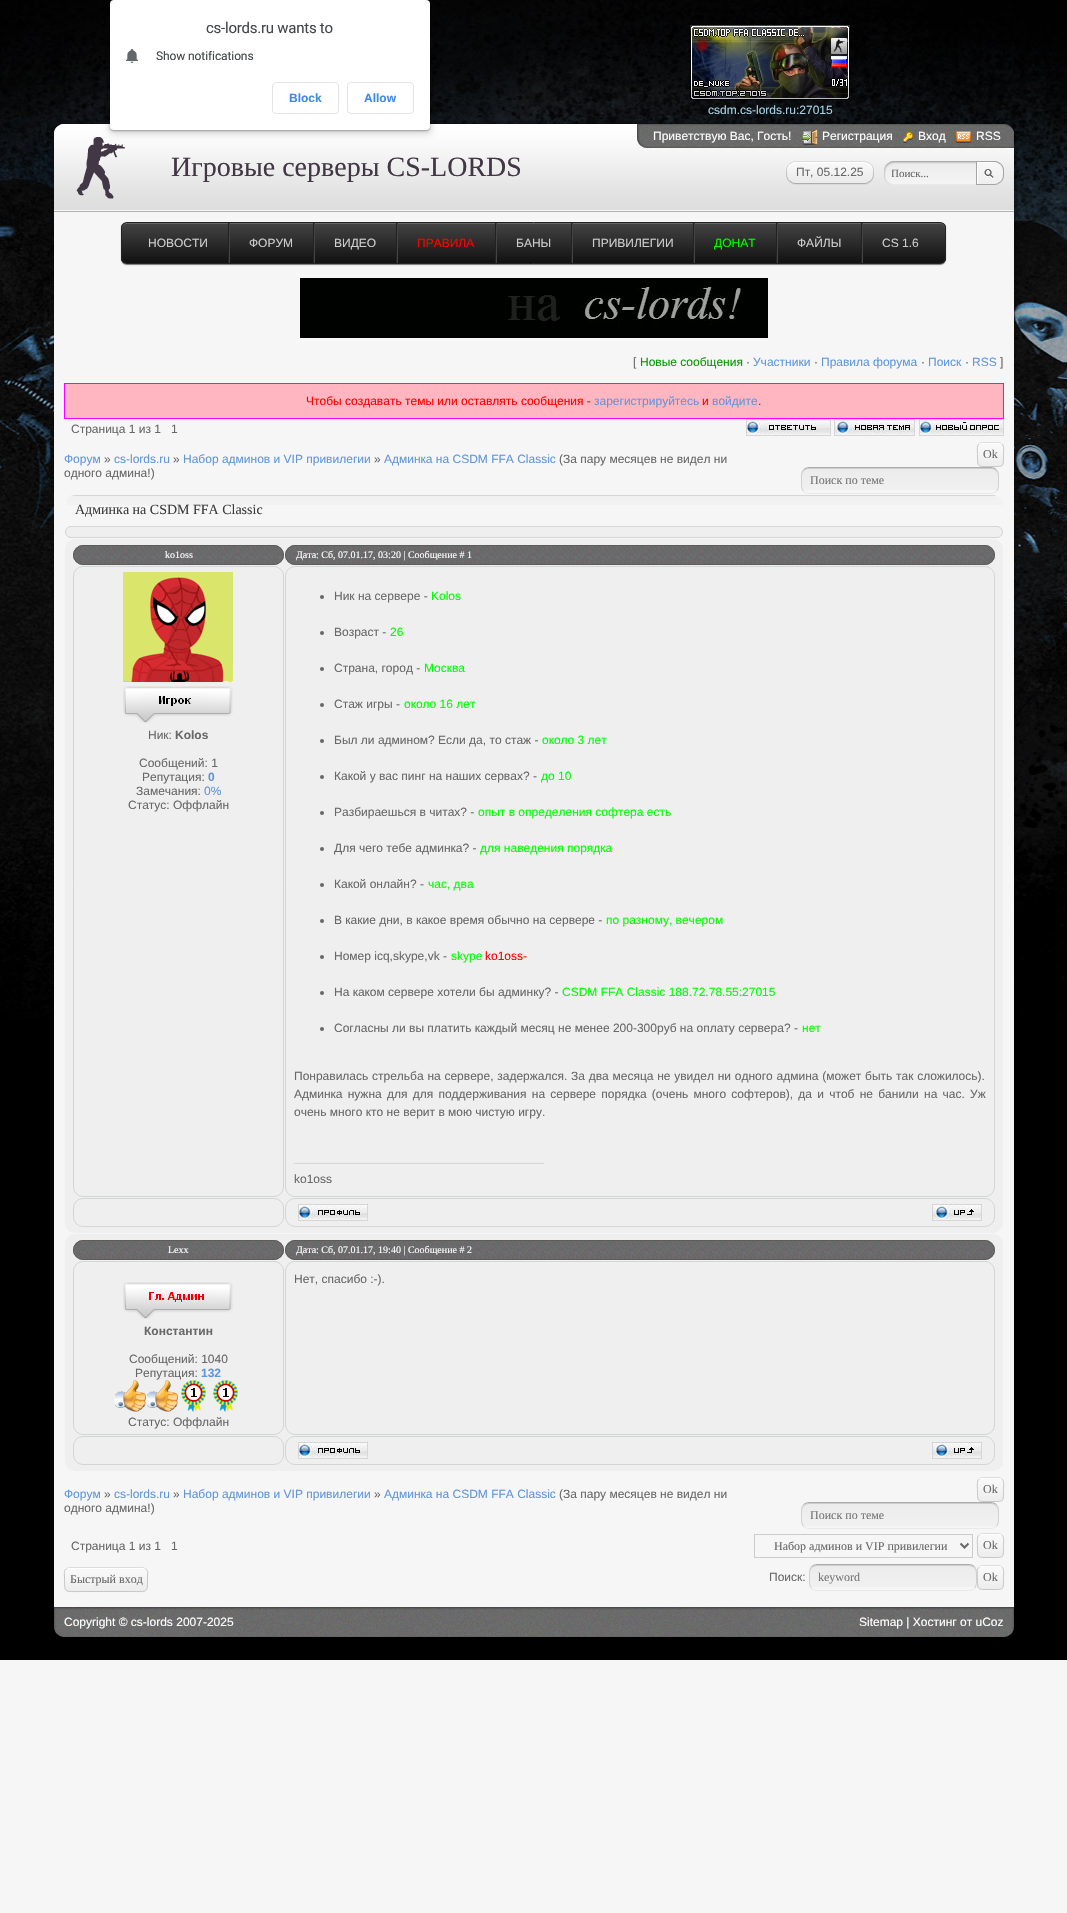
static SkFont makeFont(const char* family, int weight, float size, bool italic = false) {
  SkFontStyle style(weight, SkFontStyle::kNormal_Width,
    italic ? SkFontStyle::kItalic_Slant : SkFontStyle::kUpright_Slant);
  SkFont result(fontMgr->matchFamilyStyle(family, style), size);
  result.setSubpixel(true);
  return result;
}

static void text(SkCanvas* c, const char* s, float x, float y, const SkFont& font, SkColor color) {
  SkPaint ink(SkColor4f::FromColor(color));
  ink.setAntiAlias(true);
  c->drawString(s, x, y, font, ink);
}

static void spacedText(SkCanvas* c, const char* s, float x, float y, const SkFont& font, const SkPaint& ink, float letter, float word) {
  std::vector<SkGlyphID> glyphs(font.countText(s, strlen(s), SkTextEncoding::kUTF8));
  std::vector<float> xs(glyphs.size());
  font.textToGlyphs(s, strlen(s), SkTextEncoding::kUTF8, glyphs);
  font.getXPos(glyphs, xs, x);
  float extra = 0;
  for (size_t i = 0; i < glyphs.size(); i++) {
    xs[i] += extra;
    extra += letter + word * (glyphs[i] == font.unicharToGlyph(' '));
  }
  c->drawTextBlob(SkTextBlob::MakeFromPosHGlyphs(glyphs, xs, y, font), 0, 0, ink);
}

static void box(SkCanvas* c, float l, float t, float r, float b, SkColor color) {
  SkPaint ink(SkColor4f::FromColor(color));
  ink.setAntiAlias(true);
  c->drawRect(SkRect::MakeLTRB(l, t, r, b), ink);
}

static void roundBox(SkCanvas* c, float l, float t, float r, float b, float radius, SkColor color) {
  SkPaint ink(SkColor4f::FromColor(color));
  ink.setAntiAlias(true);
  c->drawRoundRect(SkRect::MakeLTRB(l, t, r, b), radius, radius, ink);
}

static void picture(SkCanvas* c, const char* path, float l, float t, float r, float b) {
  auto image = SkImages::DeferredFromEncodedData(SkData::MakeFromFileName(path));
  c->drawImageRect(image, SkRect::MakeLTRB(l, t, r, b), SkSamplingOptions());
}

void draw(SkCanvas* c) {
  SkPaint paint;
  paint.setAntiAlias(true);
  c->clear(0xfff6f6f6);
  picture(c, "img_02.png", 0, 0, 1067, 1019);
  picture(c, "img_04.png", 50, 120, 1018, 212);
  paint.setColor(0x26000000);
  paint.setMaskFilter(SkMaskFilter::MakeBlur(kNormal_SkBlurStyle, 3));
  c->drawRoundRect(SkRect::MakeLTRB(108, 0, 432, 134), 6, 6, paint);
  paint.setMaskFilter(nullptr);
  paint.setColor(0x4d000000);
  paint.setMaskFilter(SkMaskFilter::MakeBlur(kNormal_SkBlurStyle, 1));
  c->drawRoundRect(SkRect::MakeLTRB(110, 1, 430, 131), 4, 4, paint);
  paint.setMaskFilter(nullptr);
  roundBox(c, 110, 0, 430, 130, 4, 0xffffffff);
  SkFont face1 = makeFont("Roboto", 400, 15);
  paint.setColor(0xff434749);
  spacedText(c, "cs-lords.ru wants to", 206, 33, face1, paint, -0.25f, 0);
  picture(c, "img_01.png", 126, 49, 138, 63);
  SkFont face2 = makeFont("Roboto", 400, 12);
  spacedText(c, "Show notifications", 156, 60, face2, paint, -0.1f, 0);
  paint.setStyle(SkPaint::kStroke_Style);
  paint.setStrokeWidth(1);
  paint.setColor(0xffe4e4e4);
  c->drawRoundRect(SkRect::MakeLTRB(272.5f, 82.5f, 338.5f, 113.5f), 3.5f, 3.5f, paint);
  SkFont face3 = makeFont("Liberation Sans", 700, 12);
  text(c, "Block", 289, 102, face3, 0xff4089e8);
  c->drawRoundRect(SkRect::MakeLTRB(347.5f, 82.5f, 413.5f, 113.5f), 3.5f, 3.5f, paint);
  text(c, "Allow", 364, 102, face3, 0xff4089e8);
  box(c, 0, 1019, 1067, 1660, 0xff000000);
  picture(c, "img_03.png", 690, 25, 850, 100);
  SkFont face4 = makeFont("Liberation Sans", 400, 12);
  text(c, "csdm.cs-lords.ru:27015", 708, 114, face4, 0xffa5d0e1);
  picture(c, "img_05.png", 637, 124, 653, 148);
  picture(c, "img_06.png", 653, 124, 1005, 148);
  text(c, "Приветствую Вас, Гость!", 653, 140, face4, 0xffffffff);
  picture(c, "img_07.png", 802, 129, 818, 145);
  text(c, "Регистрация", 822, 140, face4, 0xffffffff);
  picture(c, "img_08.png", 903, 132, 913, 143);
  text(c, "Вход", 918, 140, face4, 0xffffffff);
  picture(c, "img_09.png", 956, 131, 971, 143);
  text(c, "RSS", 976, 140, face4, 0xffffffff);
  SkFont face5 = makeFont("Liberation Serif", 400, 28);
  text(c, "Игровые серверы CS-LORDS", 171, 176, face5, 0xff423744);
  picture(c, "img_10.png", 786, 161, 796, 185);
  picture(c, "img_11.png", 796, 161, 864, 185);
  text(c, "Пт, 05.12.25", 796, 176, face4, 0xff686868);
  picture(c, "img_12.png", 864, 161, 874, 185);
  picture(c, "img_13.png", 884, 161, 1004, 185);
  c->save();
  c->clipPath(SkPathBuilder().moveTo(898.5f, 166).lineTo(963.5f, 166).cubicTo(967.5f, 166, 971, 169.5f, 971, 173.5f).cubicTo(971, 177.5f, 967.5f, 181, 963.5f, 181).lineTo(898.5f, 181).cubicTo(894.5f, 181, 891, 177.5f, 891, 173.5f).cubicTo(891, 169.5f, 894.5f, 166, 898.5f, 166).close().detach(), true);
  SkFont face6 = makeFont("Liberation Serif", 400, 11);
  text(c, "Поиск...", 891, 177, face6, 0xff686868);
  c->restore();
  picture(c, "img_14.png", 47, 212, 1021, 1607);
  paint.setStyle(SkPaint::kFill_Style);
  paint.setColor(0xff777777);
  paint.setMaskFilter(SkMaskFilter::MakeBlur(kNormal_SkBlurStyle, 0.5f));
  c->drawRoundRect(SkRect::MakeLTRB(121, 223, 946, 265), 6, 6, paint);
  paint.setMaskFilter(nullptr);
  c->save();
  c->clipPath(SkPathBuilder().moveTo(127, 222).lineTo(940, 222).cubicTo(943.5f, 222, 946, 224.5f, 946, 228).lineTo(946, 258).cubicTo(946, 261.5f, 943.5f, 264, 940, 264).lineTo(127, 264).cubicTo(123.5f, 264, 121, 261.5f, 121, 258).lineTo(121, 228).cubicTo(121, 224.5f, 123.5f, 222, 127, 222).close().detach(), true);
  {
    const SkColor colors[] = {0xff444444, 0xff111111};
    const float stops[] = {0, 1};
    const SkPoint ends[] = {{534, 223}, {534, 263}};
    paint.setShader(SkGradientShader::MakeLinear(ends, colors, stops, 2, SkTileMode::kClamp));
    paint.setAlpha(255);
  }
  c->drawRect(SkRect::MakeLTRB(121, 223, 946, 263), paint);
  c->restore();
  paint.setShader(nullptr);
  paint.setColor(0xff666666);
  c->drawPath(SkPathBuilder().moveTo(127, 224).lineTo(940, 224).cubicTo(943, 224, 945, 226, 945, 229).lineTo(945, 228).cubicTo(945, 225, 943, 223, 940, 223).lineTo(127, 223).cubicTo(124, 223, 122, 225, 122, 228).lineTo(122, 229).cubicTo(122, 226, 124, 224, 127, 224).close().detach(), paint);
  paint.setStyle(SkPaint::kStroke_Style);
  paint.setColor(0xff222222);
  c->drawRoundRect(SkRect::MakeLTRB(121.5f, 222.5f, 945.5f, 263.5f), 5.5f, 5.5f, paint);
  box(c, 229, 223, 230, 263, 0xff444444);
  box(c, 228, 223, 229, 263, 0xff222222);
  text(c, "НОВОСТИ", 148, 247, face4, 0xffcccccc);
  box(c, 314, 223, 315, 263, 0xff444444);
  box(c, 313, 223, 314, 263, 0xff222222);
  text(c, "ФОРУМ", 249, 247, face4, 0xffcccccc);
  box(c, 397, 223, 398, 263, 0xff444444);
  box(c, 396, 223, 397, 263, 0xff222222);
  text(c, "ВИДЕО", 334, 247, face4, 0xffcccccc);
  box(c, 496, 223, 497, 263, 0xff444444);
  box(c, 495, 223, 496, 263, 0xff222222);
  text(c, "ПРАВИЛА", 417, 247, face4, 0xffff0000);
  box(c, 572, 223, 573, 263, 0xff444444);
  box(c, 571, 223, 572, 263, 0xff222222);
  text(c, "БАНЫ", 516, 247, face4, 0xffcccccc);
  box(c, 694, 223, 695, 263, 0xff444444);
  box(c, 693, 223, 694, 263, 0xff222222);
  text(c, "ПРИВИЛЕГИИ", 592, 247, face4, 0xffcccccc);
  box(c, 777, 223, 778, 263, 0xff444444);
  box(c, 776, 223, 777, 263, 0xff222222);
  text(c, "ДОНАТ", 714, 247, face4, 0xff00ff00);
  box(c, 862, 223, 863, 263, 0xff444444);
  box(c, 861, 223, 862, 263, 0xff222222);
  text(c, "ФАЙЛЫ", 797, 247, face4, 0xffcccccc);
  text(c, "CS 1.6", 882, 247, face4, 0xffcccccc);
  picture(c, "img_15.png", 300, 278, 768, 338);
  text(c, "[", 633, 366, face4, 0xff686868);
  text(c, "Новые сообщения", 640, 366, face4, 0xff009900);
  text(c, "·", 746, 366, face4, 0xff686868);
  text(c, "Участники", 753, 366, face4, 0xff6196da);
  text(c, "·", 814, 366, face4, 0xff686868);
  text(c, "Правила форума", 821, 366, face4, 0xff6196da);
  text(c, "·", 921, 366, face4, 0xff686868);
  text(c, "Поиск", 928, 366, face4, 0xff6196da);
  text(c, "·", 965, 366, face4, 0xff686868);
  text(c, "RSS", 972, 366, face4, 0xff6196da);
  text(c, "]", 1000, 366, face4, 0xff686868);
  paint.setStyle(SkPaint::kFill_Style);
  paint.setColor(0xffffb6c1);
  c->drawRect(SkRect::MakeLTRB(64.5f, 383.5f, 1003.5f, 418.5f), paint);
  paint.setStyle(SkPaint::kStroke_Style);
  paint.setColor(0xffff00ff);
  c->drawRect(SkRect::MakeLTRB(64.5f, 383.5f, 1003.5f, 418.5f), paint);
  text(c, "Чтобы создавать темы или оставлять сообщения -", 306, 405, face4, 0xffff0000);
  text(c, "зарегистрируйтесь", 594, 405, face4, 0xff6196da);
  text(c, "и", 702, 405, face4, 0xffff0000);
  text(c, "войдите", 712, 405, face4, 0xff6196da);
  text(c, ".", 758, 405, face4, 0xffff0000);
  text(c, "Страница 1 из 1", 71, 433, face4, 0xff686868);
  text(c, "1", 171, 433, face4, 0xff686868);
  picture(c, "img_16.png", 746, 419, 831, 436);
  picture(c, "img_17.png", 834, 419, 915, 436);
  picture(c, "img_18.png", 919, 419, 1004, 436);
  text(c, "Форум", 64, 463, face4, 0xff6196da);
  text(c, "»", 104, 463, face4, 0xff686868);
  text(c, "cs-lords.ru", 114, 463, face4, 0xff6196da);
  text(c, "»", 173, 463, face4, 0xff686868);
  text(c, "Набор админов и VIP привилегии", 183, 463, face4, 0xff6196da);
  text(c, "»", 374, 463, face4, 0xff686868);
  text(c, "Админка на CSDM FFA Classic", 384, 463, face4, 0xff6196da);
  text(c, "(За пару месяцев не видел ни", 559, 463, face4, 0xff686868);
  text(c, "одного админа!)", 64, 477, face4, 0xff686868);
  picture(c, "img_19.png", 977, 443, 1004, 467);
  paint.setColor(0xffdddddd);
  c->drawPath(SkPathBuilder().moveTo(979, 444).cubicTo(979.5f, 443, 981, 442.5f, 982, 442.5f).lineTo(999, 442.5f).cubicTo(1000, 442.5f, 1001.5f, 443, 1002, 444).detach(), paint);
  paint.setColor(0xffc6c6c6);
  c->drawPath(SkPathBuilder().moveTo(1002, 444).cubicTo(1004.5f, 446, 1003.5f, 451.5f, 1003.5f, 454.5f).cubicTo(1003.5f, 467.5f, 1004, 466.5f, 990.5f, 466.5f).cubicTo(977, 466.5f, 977.5f, 467.5f, 977.5f, 454.5f).cubicTo(977.5f, 451.5f, 976.5f, 446, 979, 444).detach(), paint);
  SkFont face7 = makeFont("Liberation Serif", 400, 12);
  text(c, "Ok", 983, 458, face7, 0xff686868);
  picture(c, "img_20.png", 801, 468, 999, 490);
  paint.setStyle(SkPaint::kFill_Style);
  paint.setColor(0xffcdcdcd);
  c->drawPath(SkPathBuilder().moveTo(809, 469).lineTo(991, 469).cubicTo(995, 469, 998, 472, 998, 476).lineTo(998, 475).cubicTo(998, 471, 995, 468, 991, 468).lineTo(809, 468).cubicTo(805, 468, 802, 471, 802, 475).lineTo(802, 476).cubicTo(802, 472, 805, 469, 809, 469).close().detach(), paint);
  paint.setStyle(SkPaint::kStroke_Style);
  paint.setColor(0xffacacac);
  c->drawPath(SkPathBuilder().moveTo(803.5f, 469.5f).cubicTo(805, 468.5f, 807, 467.5f, 809, 467.5f).lineTo(991, 467.5f).cubicTo(993, 467.5f, 995, 468.5f, 996.5f, 469.5f).detach(), paint);
  paint.setColor(0xffd0d0d0);
  c->drawPath(SkPathBuilder().moveTo(996.5f, 469.5f).cubicTo(999, 472.5f, 998.5f, 477, 998.5f, 480.5f).cubicTo(998.5f, 484, 999, 488.5f, 996.5f, 491.5f).detach(), paint);
  paint.setColor(0xffe9e9e9);
  c->drawPath(SkPathBuilder().moveTo(996.5f, 491.5f).cubicTo(995, 492.5f, 993, 493.5f, 991, 493.5f).lineTo(809, 493.5f).cubicTo(807, 493.5f, 805, 492.5f, 803.5f, 491.5f).detach(), paint);
  paint.setColor(0xffd0d0d0);
  c->drawPath(SkPathBuilder().moveTo(803.5f, 491.5f).cubicTo(801, 488.5f, 801.5f, 484, 801.5f, 480.5f).cubicTo(801.5f, 477, 801, 472.5f, 803.5f, 469.5f).detach(), paint);
  text(c, "Поиск по теме", 810, 484, face7, 0xff757575);
  picture(c, "img_21.png", 67, 495, 1003, 505);
  SkFont face8 = makeFont("Liberation Serif", 400, 14);
  text(c, "Админка на CSDM FFA Classic", 75, 514, face8, 0xff3d3d3d);
  paint.setStyle(SkPaint::kFill_Style);
  paint.setColor(0xffefefef);
  c->drawRoundRect(SkRect::MakeLTRB(65.5f, 526.5f, 1002.5f, 537.5f), 5.5f, 5.5f, paint);
  paint.setStyle(SkPaint::kStroke_Style);
  paint.setColor(0xffd2d6d6);
  c->drawRoundRect(SkRect::MakeLTRB(65.5f, 526.5f, 1002.5f, 537.5f), 5.5f, 5.5f, paint);
  roundBox(c, 65, 539, 1003, 1233, 10, 0xffefefef);
  picture(c, "img_22.png", 73, 545, 284, 565);
  paint.setColor(0xff5e5b59);
  c->drawRoundRect(SkRect::MakeLTRB(73.5f, 545.5f, 283.5f, 564.5f), 9.5f, 9.5f, paint);
  SkFont face9 = makeFont("Liberation Serif", 400, 10);
  text(c, "ko1oss", 165, 558, face9, 0xffffffff);
  picture(c, "img_23.png", 285, 545, 995, 565);
  c->drawRoundRect(SkRect::MakeLTRB(285.5f, 545.5f, 994.5f, 564.5f), 9.5f, 9.5f, paint);
  text(c, "Дата: Сб, 07.01.17, 03:20 | Сообщение # 1", 296, 558, face9, 0xffffffff);
  paint.setColor(0xffd2d6d6);
  c->drawRoundRect(SkRect::MakeLTRB(73.5f, 566.5f, 283.5f, 1196.5f), 9.5f, 9.5f, paint);
  picture(c, "img_24.png", 123, 572, 233, 682);
  picture(c, "img_25.png", 123, 686, 233, 723);
  text(c, "Ник:", 148, 739, face4, 0xff686868);
  text(c, "Kolos", 175, 739, face3, 0xff686868);
  text(c, "Сообщений: 1", 139, 767, face4, 0xff686868);
  text(c, "Репутация:", 142, 781, face4, 0xff686868);
  text(c, "0", 208, 781, face3, 0xff6196da);
  text(c, "Замечания:", 136, 795, face4, 0xff686868);
  text(c, "0%", 204, 795, face4, 0xff6196da);
  text(c, "Статус: Оффлайн", 128, 809, face4, 0xff686868);
  c->drawRoundRect(SkRect::MakeLTRB(285.5f, 566.5f, 994.5f, 1196.5f), 9.5f, 9.5f, paint);
  paint.setStyle(SkPaint::kFill_Style);
  paint.setColor(0xff676767);
  c->drawCircle(322, 597, 2, paint);
  text(c, "Ник на сервере -", 334, 600, face4, 0xff686868);
  text(c, "Kolos", 431, 600, face4, 0xff00ff00);
  c->drawCircle(322, 633, 2, paint);
  text(c, "Возраст -", 334, 636, face4, 0xff686868);
  text(c, "26", 390, 636, face4, 0xff00ff00);
  c->drawCircle(322, 669, 2, paint);
  text(c, "Страна, город -", 334, 672, face4, 0xff686868);
  text(c, "Москва", 424, 672, face4, 0xff00ff00);
  c->drawCircle(322, 705, 2, paint);
  text(c, "Стаж игры -", 334, 708, face4, 0xff686868);
  text(c, "около 16 лет", 404, 708, face4, 0xff00ff00);
  c->drawCircle(322, 741, 2, paint);
  text(c, "Был ли админом? Если да, то стаж -", 334, 744, face4, 0xff686868);
  text(c, "около 3 лет", 542, 744, face4, 0xff00ff00);
  c->drawCircle(322, 777, 2, paint);
  text(c, "Какой у вас пинг на наших сервах? -", 334, 780, face4, 0xff686868);
  text(c, "до 10", 541, 780, face4, 0xff00ff00);
  c->drawCircle(322, 813, 2, paint);
  text(c, "Разбираешься в читах? -", 334, 816, face4, 0xff686868);
  text(c, "опыт в определения софтера есть", 478, 816, face4, 0xff00ff00);
  c->drawCircle(322, 849, 2, paint);
  text(c, "Для чего тебе админка? -", 334, 852, face4, 0xff686868);
  text(c, "для наведения порядка", 480, 852, face4, 0xff00ff00);
  c->drawCircle(322, 885, 2, paint);
  text(c, "Какой онлайн? -", 334, 888, face4, 0xff686868);
  text(c, "час, два", 428, 888, face4, 0xff00ff00);
  c->drawCircle(322, 921, 2, paint);
  text(c, "В какие дни, в какое время обычно на сервере -", 334, 924, face4, 0xff686868);
  text(c, "по разному, вечером", 606, 924, face4, 0xff00ff00);
  c->drawCircle(322, 957, 2, paint);
  text(c, "Номер icq,skype,vk -", 334, 960, face4, 0xff686868);
  text(c, "skype", 451, 960, face4, 0xff00ff00);
  text(c, "ko1oss-", 485, 960, face4, 0xffff0000);
  c->drawCircle(322, 993, 2, paint);
  text(c, "На каком сервере хотели бы админку? -", 334, 996, face4, 0xff686868);
  text(c, "CSDM FFA Classic 188.72.78.55:27015", 562, 996, face4, 0xff00ff00);
  c->drawCircle(322, 1029, 2, paint);
  text(c, "Согласны ли вы платить каждый месяц не менее 200-300руб на оплату сервера? -", 334, 1032, face4, 0xff686868);
  text(c, "нет", 802, 1032, face4, 0xff00ff00);
  paint.setColor(0xff686868);
  spacedText(c, "Понравилась стрельба на сервере, задержался. За два месяца не увидел ни одного админа (может быть так сложилось).", 294, 1080, face4, paint, 0, 0.4f);
  spacedText(c, "Админка нужна для для поддерживания на сервере порядка (очень много софтеров), да и чтоб не банили на час. Уж", 294, 1098, face4, paint, 0, 1.9f);
  text(c, "очень много кто не верит в мою чистую игру.", 294, 1116, face4, 0xff686868);
  box(c, 294, 1163, 544, 1164, 0xffd6d6d6);
  text(c, "ko1oss", 294, 1183, face4, 0xff686868);
  paint.setStyle(SkPaint::kStroke_Style);
  paint.setColor(0xffd2d6d6);
  c->drawRoundRect(SkRect::MakeLTRB(73.5f, 1198.5f, 283.5f, 1226.5f), 9.5f, 9.5f, paint);
  c->drawRoundRect(SkRect::MakeLTRB(285.5f, 1198.5f, 994.5f, 1226.5f), 9.5f, 9.5f, paint);
  picture(c, "img_26.png", 298, 1204, 368, 1221);
  picture(c, "img_27.png", 932, 1204, 982, 1221);
  roundBox(c, 65, 1234, 1003, 1471, 10, 0xffefefef);
  picture(c, "img_22.png", 73, 1240, 284, 1260);
  paint.setColor(0xff5e5b59);
  c->drawRoundRect(SkRect::MakeLTRB(73.5f, 1240.5f, 283.5f, 1259.5f), 9.5f, 9.5f, paint);
  text(c, "Lexx", 168, 1253, face9, 0xffffffff);
  picture(c, "img_28.png", 285, 1240, 995, 1260);
  c->drawRoundRect(SkRect::MakeLTRB(285.5f, 1240.5f, 994.5f, 1259.5f), 9.5f, 9.5f, paint);
  text(c, "Дата: Сб, 07.01.17, 19:40 | Сообщение # 2", 296, 1253, face9, 0xffffffff);
  paint.setColor(0xffd2d6d6);
  c->drawRoundRect(SkRect::MakeLTRB(285.5f, 1261.5f, 994.5f, 1434.5f), 9.5f, 9.5f, paint);
  text(c, "Нет, спасибо :-).", 294, 1283, face4, 0xff686868);
  c->drawRoundRect(SkRect::MakeLTRB(73.5f, 1261.5f, 283.5f, 1434.5f), 9.5f, 9.5f, paint);
  picture(c, "img_29.png", 123, 1282, 233, 1319);
  text(c, "Константин", 144, 1335, face3, 0xff686868);
  text(c, "Сообщений: 1040", 129, 1363, face4, 0xff686868);
  text(c, "Репутация:", 135, 1377, face4, 0xff686868);
  text(c, "132", 201, 1377, face3, 0xff6196da);
  picture(c, "img_30.png", 114, 1380, 146, 1412);
  picture(c, "img_30.png", 146, 1380, 178, 1412);
  picture(c, "img_31.png", 181, 1380, 206, 1412);
  picture(c, "img_31.png", 213, 1380, 238, 1412);
  text(c, "Статус: Оффлайн", 128, 1426, face4, 0xff686868);
  c->drawRoundRect(SkRect::MakeLTRB(73.5f, 1436.5f, 283.5f, 1464.5f), 9.5f, 9.5f, paint);
  c->drawRoundRect(SkRect::MakeLTRB(285.5f, 1436.5f, 994.5f, 1464.5f), 9.5f, 9.5f, paint);
  picture(c, "img_26.png", 298, 1442, 368, 1459);
  picture(c, "img_27.png", 932, 1442, 982, 1459);
  text(c, "Форум", 64, 1498, face4, 0xff6196da);
  text(c, "»", 104, 1498, face4, 0xff686868);
  text(c, "cs-lords.ru", 114, 1498, face4, 0xff6196da);
  text(c, "»", 173, 1498, face4, 0xff686868);
  text(c, "Набор админов и VIP привилегии", 183, 1498, face4, 0xff6196da);
  text(c, "»", 374, 1498, face4, 0xff686868);
  text(c, "Админка на CSDM FFA Classic", 384, 1498, face4, 0xff6196da);
  text(c, "(За пару месяцев не видел ни", 559, 1498, face4, 0xff686868);
  text(c, "одного админа!)", 64, 1512, face4, 0xff686868);
  picture(c, "img_19.png", 977, 1478, 1004, 1502);
  paint.setColor(0xffdddddd);
  c->drawPath(SkPathBuilder().moveTo(979, 1479).cubicTo(979.5f, 1478, 981, 1477.5f, 982, 1477.5f).lineTo(999, 1477.5f).cubicTo(1000, 1477.5f, 1001.5f, 1478, 1002, 1479).detach(), paint);
  paint.setColor(0xffc6c6c6);
  c->drawPath(SkPathBuilder().moveTo(1002, 1479).cubicTo(1004.5f, 1481, 1003.5f, 1486.5f, 1003.5f, 1489.5f).cubicTo(1003.5f, 1502.5f, 1004, 1501.5f, 990.5f, 1501.5f).cubicTo(977, 1501.5f, 977.5f, 1502.5f, 977.5f, 1489.5f).cubicTo(977.5f, 1486.5f, 976.5f, 1481, 979, 1479).detach(), paint);
  text(c, "Ok", 983, 1493, face7, 0xff686868);
  picture(c, "img_32.png", 801, 1503, 999, 1526);
  paint.setStyle(SkPaint::kFill_Style);
  paint.setColor(0xffcdcdcd);
  c->drawPath(SkPathBuilder().moveTo(809, 1504).lineTo(991, 1504).cubicTo(995, 1504, 998, 1507, 998, 1511).lineTo(998, 1510).cubicTo(998, 1506, 995, 1503, 991, 1503).lineTo(809, 1503).cubicTo(805, 1503, 802, 1506, 802, 1510).lineTo(802, 1511).cubicTo(802, 1507, 805, 1504, 809, 1504).close().detach(), paint);
  paint.setStyle(SkPaint::kStroke_Style);
  paint.setColor(0xffacacac);
  c->drawPath(SkPathBuilder().moveTo(803.5f, 1504.5f).cubicTo(805, 1503.5f, 807, 1502.5f, 809, 1502.5f).lineTo(991, 1502.5f).cubicTo(993, 1502.5f, 995, 1503.5f, 996.5f, 1504.5f).detach(), paint);
  paint.setColor(0xffd0d0d0);
  c->drawPath(SkPathBuilder().moveTo(996.5f, 1504.5f).cubicTo(999, 1507.5f, 998.5f, 1512, 998.5f, 1515.5f).cubicTo(998.5f, 1519, 999, 1523.5f, 996.5f, 1526.5f).detach(), paint);
  paint.setColor(0xffe9e9e9);
  c->drawPath(SkPathBuilder().moveTo(996.5f, 1526.5f).cubicTo(995, 1527.5f, 993, 1528.5f, 991, 1528.5f).lineTo(809, 1528.5f).cubicTo(807, 1528.5f, 805, 1527.5f, 803.5f, 1526.5f).detach(), paint);
  paint.setColor(0xffd0d0d0);
  c->drawPath(SkPathBuilder().moveTo(803.5f, 1526.5f).cubicTo(801, 1523.5f, 801.5f, 1519, 801.5f, 1515.5f).cubicTo(801.5f, 1512, 801, 1507.5f, 803.5f, 1504.5f).detach(), paint);
  text(c, "Поиск по теме", 810, 1519, face7, 0xff757575);
  text(c, "Страница 1 из 1", 71, 1550, face4, 0xff686868);
  text(c, "1", 171, 1550, face4, 0xff686868);
  paint.setColor(0xffcccccc);
  c->drawRect(SkRect::MakeLTRB(754.5f, 1534.5f, 972.5f, 1557.5f), paint);
  paint.setStrokeWidth(2);
  paint.setColor(0xff686868);
  c->drawPath(SkPathBuilder().moveTo(960.5f, 1543.5f).lineTo(964.5f, 1547.5f).lineTo(968.5f, 1543.5f).detach(), paint);
  text(c, "Набор админов и VIP привилегии", 774, 1550, face7, 0xff686868);
  picture(c, "img_19.png", 977, 1534, 1004, 1558);
  paint.setStrokeWidth(1);
  paint.setColor(0xffdddddd);
  c->drawPath(SkPathBuilder().moveTo(979, 1535).cubicTo(979.5f, 1534, 981, 1533.5f, 982, 1533.5f).lineTo(999, 1533.5f).cubicTo(1000, 1533.5f, 1001.5f, 1534, 1002, 1535).detach(), paint);
  paint.setColor(0xffc6c6c6);
  c->drawPath(SkPathBuilder().moveTo(1002, 1535).cubicTo(1004.5f, 1537, 1003.5f, 1542.5f, 1003.5f, 1545.5f).cubicTo(1003.5f, 1558.5f, 1004, 1557.5f, 990.5f, 1557.5f).cubicTo(977, 1557.5f, 977.5f, 1558.5f, 977.5f, 1545.5f).cubicTo(977.5f, 1542.5f, 976.5f, 1537, 979, 1535).detach(), paint);
  text(c, "Ok", 983, 1549, face7, 0xff686868);
  picture(c, "img_33.png", 64, 1568, 148, 1592);
  paint.setColor(0xffdddddd);
  c->drawPath(SkPathBuilder().moveTo(66, 1569).lineTo(68.5f, 1567.5f).lineTo(143.5f, 1567.5f).lineTo(146, 1569).detach(), paint);
  paint.setColor(0xffc6c6c6);
  c->drawPath(SkPathBuilder().moveTo(146, 1569).cubicTo(148.5f, 1571, 147.5f, 1574.5f, 147.5f, 1577).cubicTo(147.5f, 1593.5f, 148.5f, 1591.5f, 130.5f, 1591.5f).lineTo(81.5f, 1591.5f).cubicTo(63.5f, 1591.5f, 64.5f, 1593.5f, 64.5f, 1577).cubicTo(64.5f, 1574.5f, 63.5f, 1571, 66, 1569).detach(), paint);
  text(c, "Быстрый вход", 70, 1583, face7, 0xff686868);
  text(c, "Поиск:", 769, 1581, face4, 0xff686868);
  picture(c, "img_34.png", 809, 1565, 977, 1587);
  paint.setStyle(SkPaint::kFill_Style);
  paint.setColor(0xffcdcdcd);
  c->drawPath(SkPathBuilder().moveTo(817, 1566).lineTo(969, 1566).cubicTo(973, 1566, 976, 1569, 976, 1573).lineTo(976, 1572).cubicTo(976, 1568, 973, 1565, 969, 1565).lineTo(817, 1565).cubicTo(813, 1565, 810, 1568, 810, 1572).lineTo(810, 1573).cubicTo(810, 1569, 813, 1566, 817, 1566).close().detach(), paint);
  paint.setStyle(SkPaint::kStroke_Style);
  paint.setColor(0xffacacac);
  c->drawPath(SkPathBuilder().moveTo(811.5f, 1566.5f).cubicTo(813, 1565.5f, 815, 1564.5f, 817, 1564.5f).lineTo(969, 1564.5f).cubicTo(971, 1564.5f, 973, 1565.5f, 974.5f, 1566.5f).detach(), paint);
  paint.setColor(0xffd0d0d0);
  c->drawPath(SkPathBuilder().moveTo(974.5f, 1566.5f).cubicTo(977, 1569.5f, 976.5f, 1574, 976.5f, 1577.5f).cubicTo(976.5f, 1581, 977, 1585.5f, 974.5f, 1588.5f).detach(), paint);
  paint.setColor(0xffe9e9e9);
  c->drawPath(SkPathBuilder().moveTo(974.5f, 1588.5f).cubicTo(973, 1589.5f, 971, 1590.5f, 969, 1590.5f).lineTo(817, 1590.5f).cubicTo(815, 1590.5f, 813, 1589.5f, 811.5f, 1588.5f).detach(), paint);
  paint.setColor(0xffd0d0d0);
  c->drawPath(SkPathBuilder().moveTo(811.5f, 1588.5f).cubicTo(809, 1585.5f, 809.5f, 1581, 809.5f, 1577.5f).cubicTo(809.5f, 1574, 809, 1569.5f, 811.5f, 1566.5f).detach(), paint);
  text(c, "keyword", 818, 1581, face7, 0xff757575);
  picture(c, "img_19.png", 977, 1566, 1004, 1590);
  paint.setColor(0xffdddddd);
  c->drawPath(SkPathBuilder().moveTo(979, 1567).cubicTo(979.5f, 1566, 981, 1565.5f, 982, 1565.5f).lineTo(999, 1565.5f).cubicTo(1000, 1565.5f, 1001.5f, 1566, 1002, 1567).detach(), paint);
  paint.setColor(0xffc6c6c6);
  c->drawPath(SkPathBuilder().moveTo(1002, 1567).cubicTo(1004.5f, 1569, 1003.5f, 1574.5f, 1003.5f, 1577.5f).cubicTo(1003.5f, 1590.5f, 1004, 1589.5f, 990.5f, 1589.5f).cubicTo(977, 1589.5f, 977.5f, 1590.5f, 977.5f, 1577.5f).cubicTo(977.5f, 1574.5f, 976.5f, 1569, 979, 1567).detach(), paint);
  text(c, "Ok", 983, 1581, face7, 0xff686868);
  picture(c, "img_35.png", 54, 1607, 1014, 1637);
  text(c, "Copyright © cs-lords 2007-2025", 64, 1626, face4, 0xffffffff);
  text(c, "Sitemap | Хостинг от uCoz", 859, 1626, face4, 0xffffffff);
}
